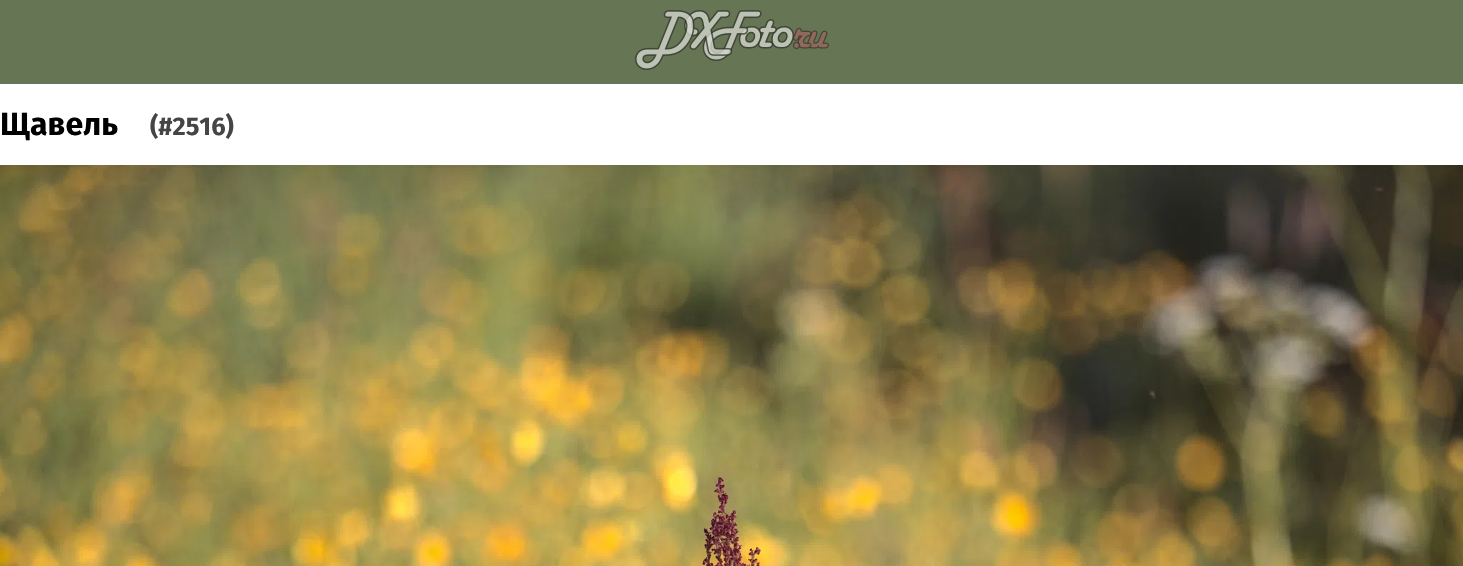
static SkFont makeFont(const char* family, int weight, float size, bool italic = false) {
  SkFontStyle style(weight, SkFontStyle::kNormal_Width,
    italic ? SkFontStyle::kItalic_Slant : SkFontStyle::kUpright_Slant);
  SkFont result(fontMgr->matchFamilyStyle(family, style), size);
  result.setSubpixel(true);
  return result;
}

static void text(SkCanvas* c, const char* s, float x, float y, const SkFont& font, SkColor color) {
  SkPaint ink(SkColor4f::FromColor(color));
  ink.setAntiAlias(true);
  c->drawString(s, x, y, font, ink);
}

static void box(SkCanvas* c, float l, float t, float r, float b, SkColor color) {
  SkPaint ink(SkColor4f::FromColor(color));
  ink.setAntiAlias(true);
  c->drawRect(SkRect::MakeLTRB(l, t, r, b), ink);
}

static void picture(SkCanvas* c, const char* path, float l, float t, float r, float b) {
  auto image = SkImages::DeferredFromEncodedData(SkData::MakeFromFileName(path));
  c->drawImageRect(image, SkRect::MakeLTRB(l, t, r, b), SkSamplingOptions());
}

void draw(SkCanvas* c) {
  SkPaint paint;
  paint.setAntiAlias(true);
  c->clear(0xffffffff);
  box(c, 0, 0, 1463, 84, 0xff667654);
  picture(c, "img_01.png", 635, 10, 829, 70);
  SkFont face1 = makeFont("Fira Sans", 700, 32);
  text(c, "Щавель", 0, 135, face1, 0xff000000);
  SkFont face2 = makeFont("Fira Sans", 700, 25.5f);
  text(c, "(#2516)", 150, 135, face2, 0xff454545);
  picture(c, "img_02.png", 0, 165, 1463, 566);
}
